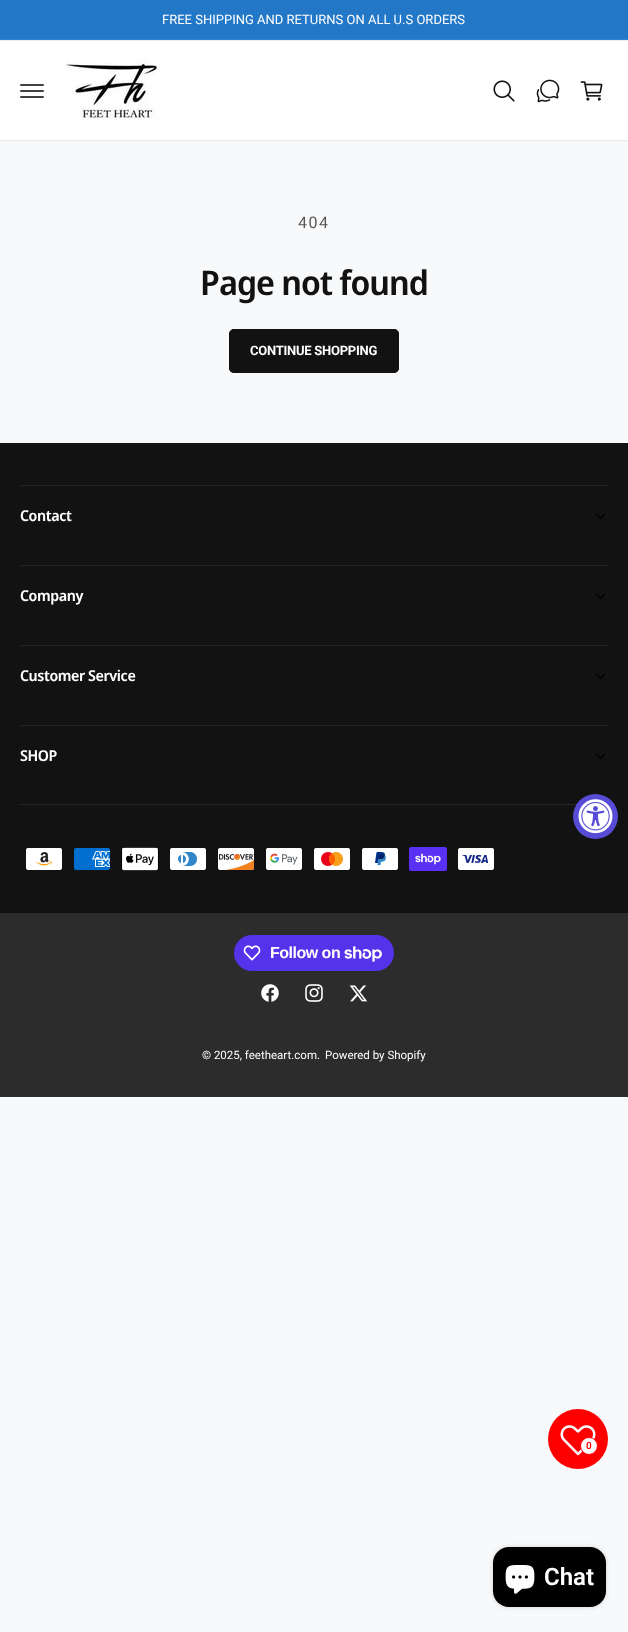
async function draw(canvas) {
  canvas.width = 628
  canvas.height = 1632
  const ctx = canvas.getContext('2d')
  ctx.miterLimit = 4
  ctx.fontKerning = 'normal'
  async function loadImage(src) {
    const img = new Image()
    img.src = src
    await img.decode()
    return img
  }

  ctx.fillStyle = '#f8f9fa'
  ctx.fillRect(0, 0, 628, 1632)
  ctx.fillStyle = '#2277c7'
  ctx.fillRect(0, 0, 628, 39)
  ctx.fillStyle = '#3482cb'
  ctx.fillRect(0, 39, 628, 1)
  ctx.font = '13px Roboto'
  ctx.fillStyle = '#fff'
  ctx.fillText('FREE SHIPPING AND RETURNS ON ALL U.S ORDERS', 162, 24)
  ctx.fillRect(0, 41, 628, 99)
  ctx.fillStyle = '#ececec'
  ctx.fillRect(0, 40, 628, 1)
  ctx.fillRect(0, 140, 628, 1)
  ctx.beginPath()
  ctx.moveTo(21, 85)
  ctx.lineTo(43, 85)
  ctx.moveTo(21, 91)
  ctx.lineTo(43, 91)
  ctx.moveTo(21, 97)
  ctx.lineTo(43, 97)
  ctx.strokeStyle = '#414141'
  ctx.lineWidth = 2
  ctx.lineCap = 'round'
  ctx.stroke()
  ctx.drawImage(await loadImage('image0.png'), 66, 59, 93, 61)
  ctx.drawImage(await loadImage('image1.png'), 493, 80, 22, 22)
  ctx.drawImage(await loadImage('image2.png'), 536, 79, 24, 24)
  ctx.drawImage(await loadImage('image3.png'), 580, 81, 23, 20)
  ctx.letterSpacing = '1.5px'
  ctx.font = '16px Roboto'
  ctx.fillStyle = '#575758'
  ctx.fillText('404', 298, 228)
  ctx.letterSpacing = '-1px'
  ctx.font = '600 34px Noto Sans Display'
  ctx.fillStyle = '#121212'
  ctx.fillText('Page not found', 200, 295)
  ctx.beginPath()
  ctx.roundRect(229, 329, 170, 44, 5)
  ctx.fill()
  ctx.beginPath()
  ctx.roundRect(229.5, 329.5, 169, 43, 4.5)
  ctx.strokeStyle = '#121212'
  ctx.lineWidth = 1
  ctx.stroke()
  ctx.letterSpacing = '-0.25px'
  ctx.font = 'bold 13px Roboto'
  ctx.fillStyle = '#fff'
  ctx.fillText('CONTINUE SHOPPING', 250, 355)
  ctx.fillStyle = '#121212'
  ctx.fillRect(0, 443, 628, 470)
  ctx.fillStyle = '#252525'
  ctx.fillRect(20, 485, 588, 1)
  ctx.fillRect(20, 565, 588, 1)
  ctx.letterSpacing = '-0.4px'
  ctx.font = '600 15px Noto Sans Display'
  ctx.fillStyle = '#fff'
  ctx.fillText('Contact', 20, 521)
  ctx.beginPath()
  ctx.moveTo(596.5, 514.5)
  ctx.lineTo(600.5, 518.5)
  ctx.lineTo(604.5, 514.5)
  ctx.strokeStyle = '#000'
  ctx.lineWidth = 1.4
  ctx.lineJoin = 'round'
  ctx.stroke()
  ctx.fillStyle = '#252525'
  ctx.fillRect(20, 645, 588, 1)
  ctx.fillStyle = '#fff'
  ctx.fillText('Company', 20, 601)
  ctx.beginPath()
  ctx.moveTo(596.5, 594.5)
  ctx.lineTo(600.5, 598.5)
  ctx.lineTo(604.5, 594.5)
  ctx.stroke()
  ctx.fillStyle = '#252525'
  ctx.fillRect(20, 725, 588, 1)
  ctx.fillStyle = '#fff'
  ctx.fillText('Customer Service', 20, 681)
  ctx.beginPath()
  ctx.moveTo(596.5, 674.5)
  ctx.lineTo(600.5, 678.5)
  ctx.lineTo(604.5, 674.5)
  ctx.stroke()
  ctx.fillStyle = '#252525'
  ctx.fillRect(20, 804, 557, 1)
  ctx.fillStyle = '#fff'
  ctx.fillText('SHOP', 20, 761)
  ctx.beginPath()
  ctx.moveTo(596.5, 754.5)
  ctx.lineTo(600.5, 758.5)
  ctx.lineTo(604.5, 754.5)
  ctx.stroke()
  ctx.drawImage(await loadImage('image4.png'), 26, 848, 36, 22)
  ctx.drawImage(await loadImage('image5.png'), 74, 848, 36, 22)
  ctx.drawImage(await loadImage('image6.png'), 121, 847, 38, 24)
  ctx.drawImage(await loadImage('image7.png'), 170, 848, 36, 22)
  ctx.drawImage(await loadImage('image8.png'), 218, 848, 36, 22)
  ctx.drawImage(await loadImage('image9.png'), 266, 848, 36, 22)
  ctx.drawImage(await loadImage('image10.png'), 314, 848, 36, 22)
  ctx.drawImage(await loadImage('image11.png'), 362, 848, 36, 22)
  ctx.drawImage(await loadImage('image12.png'), 409, 847, 38, 24)
  ctx.drawImage(await loadImage('image13.png'), 458, 848, 36, 22)
  ctx.fillStyle = '#2c2c2c'
  ctx.fillRect(0, 913, 628, 184)
  ctx.fillStyle = '#5433eb'
  ctx.beginPath()
  ctx.roundRect(234, 935, 160, 36, 18)
  ctx.fill()
  ctx.drawImage(await loadImage('image14.png'), 243, 945, 18, 16)
  ctx.letterSpacing = '-0.5px'
  ctx.font = 'bold 16px Liberation Sans'
  ctx.fillStyle = '#fff'
  ctx.fillText('Follow on', 270, 958)
  ctx.drawImage(await loadImage('image15.png'), 344, 946, 38, 16)
  ctx.drawImage(await loadImage('image16.png'), 261, 984, 18, 18)
  ctx.drawImage(await loadImage('image17.png'), 305, 984, 18, 18)
  ctx.drawImage(await loadImage('image18.png'), 349, 985, 19, 17)
  ctx.letterSpacing = '0px'
  ctx.font = '11.5px Roboto'
  ctx.fillText('© 2025, feetheart.com.', 202, 1059)
  ctx.fillText('Powered by Shopify', 325, 1059)
  ctx.fillStyle = '#574cd5'
  ctx.beginPath()
  ctx.arc(595.5, 816.5, 22.5, 0, 2 * Math.PI)
  ctx.fill()
  ctx.drawImage(await loadImage('image19.png'), 578, 799, 35, 35)
  ctx.fillStyle = '#f00'
  ctx.beginPath()
  ctx.arc(578, 1439, 30, 0, 2 * Math.PI)
  ctx.fill()
  ctx.drawImage(await loadImage('image20.png'), 560, 1425, 36, 31)
  ctx.fillStyle = '#fff'
  ctx.beginPath()
  ctx.arc(589, 1446, 8.5, 0, 2 * Math.PI)
  ctx.fill()
  ctx.strokeStyle = '#f00'
  ctx.lineWidth = 1
  ctx.stroke()
  ctx.font = '600 10px Roboto'
  ctx.fillStyle = '#f00'
  ctx.fillText('0', 586, 1449)
  ctx.fillStyle = '#00000026'
  ctx.filter = 'blur(2.5px)'
  ctx.beginPath()
  ctx.roundRect(493, 1547, 113, 60, 16)
  ctx.fill()
  ctx.filter = 'none'
  ctx.fillStyle = '#000'
  ctx.beginPath()
  ctx.roundRect(493, 1547, 113, 60, 16)
  ctx.fill()
  ctx.drawImage(await loadImage('image21.png'), 505, 1565, 30, 29)
  ctx.font = '600 24px Roboto'
  ctx.fillStyle = '#fff'
  ctx.fillText('Chat', 544, 1585)
}

draw(document.querySelector('canvas'))
